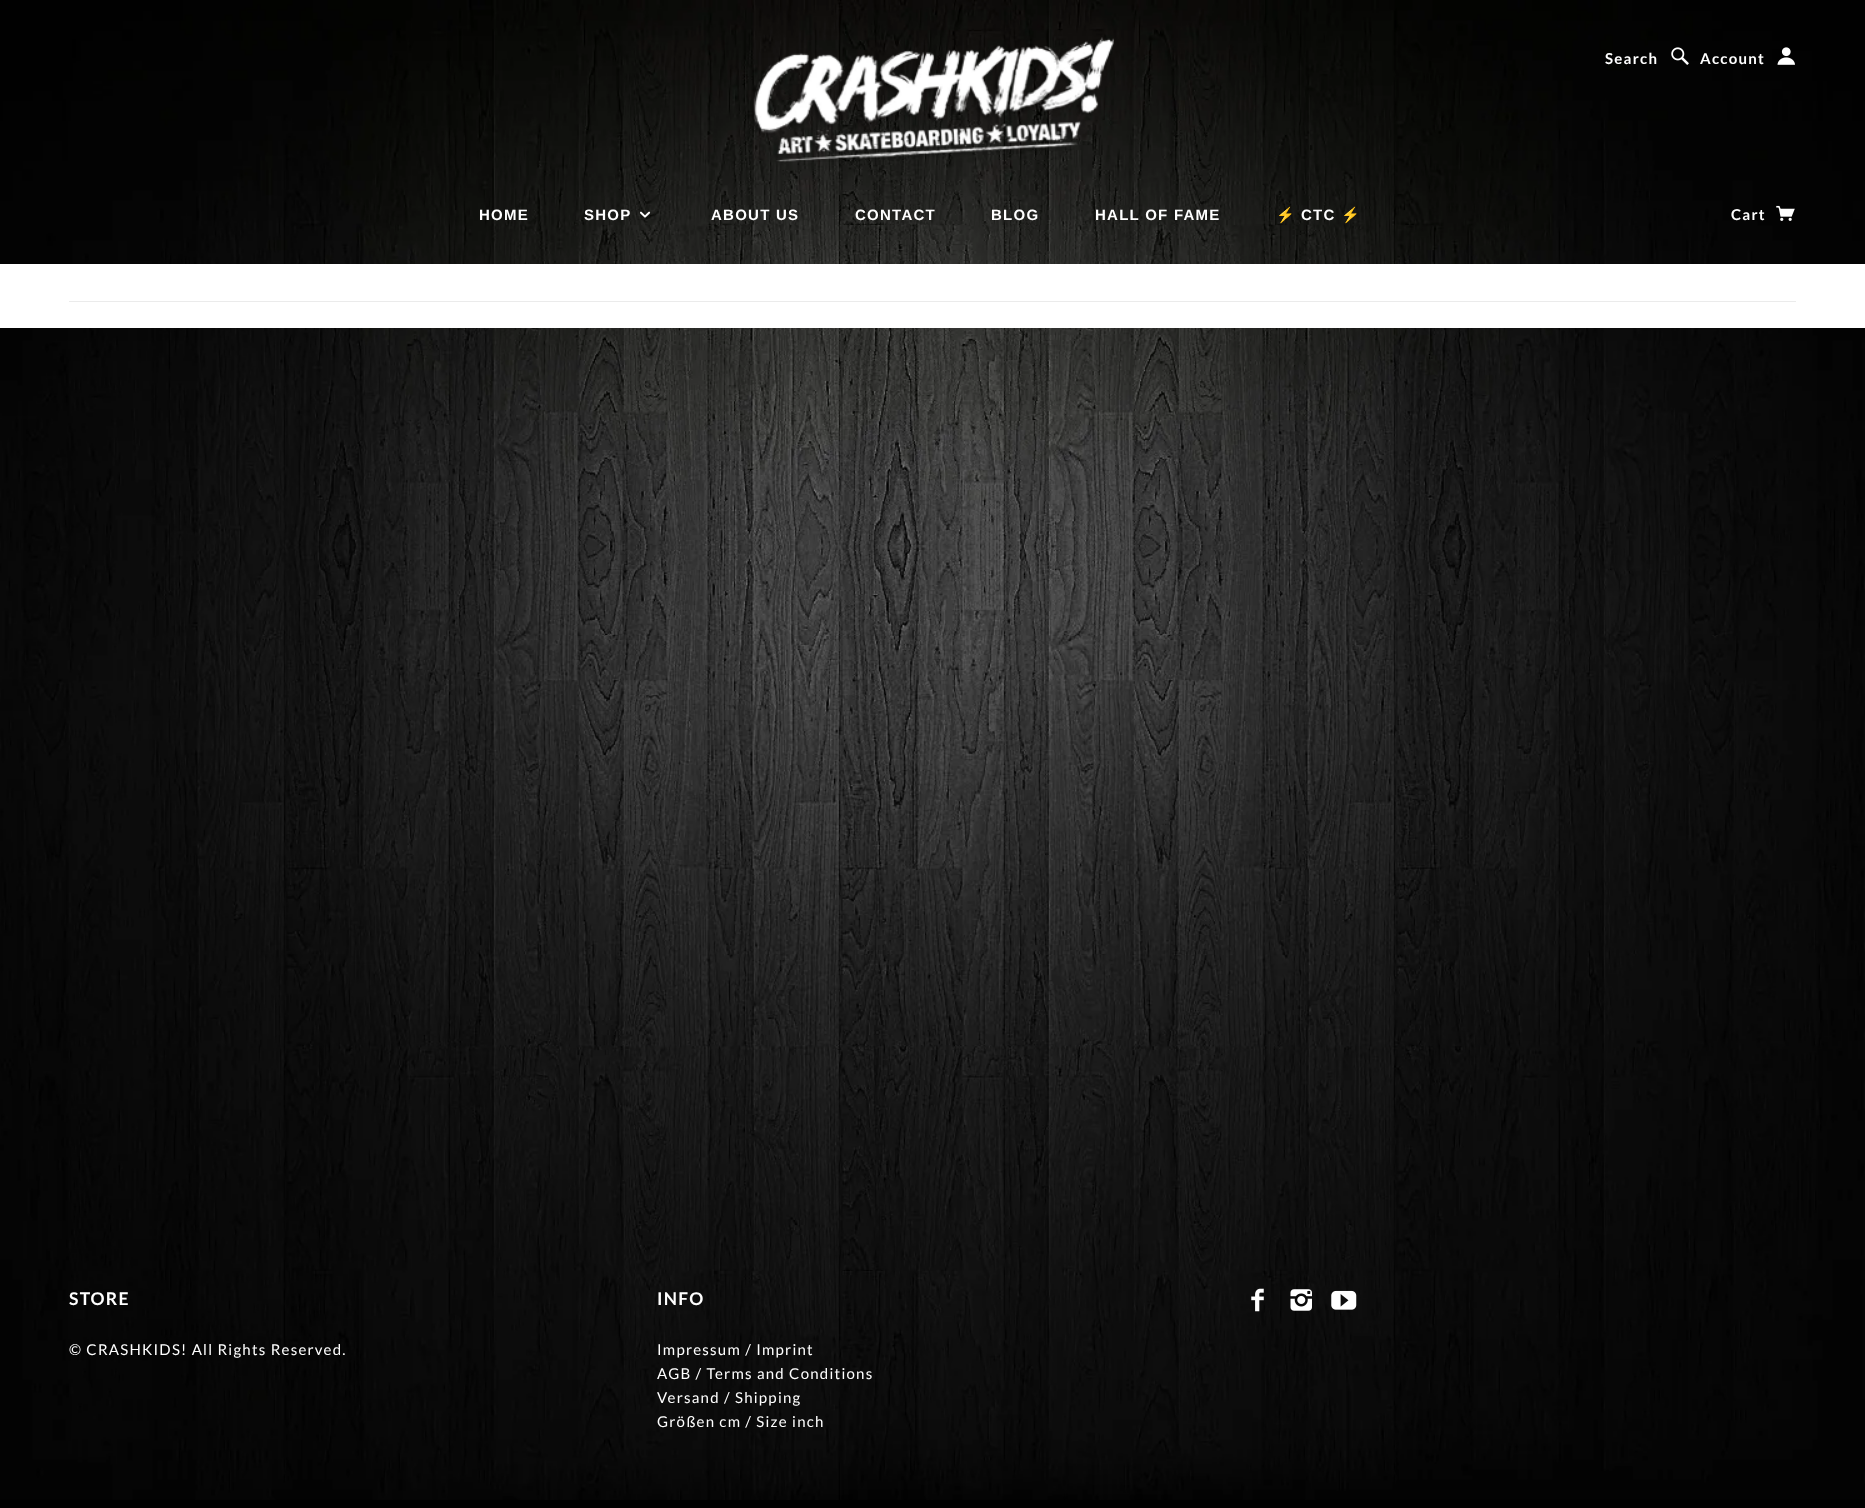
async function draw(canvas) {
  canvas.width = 1865
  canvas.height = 1508
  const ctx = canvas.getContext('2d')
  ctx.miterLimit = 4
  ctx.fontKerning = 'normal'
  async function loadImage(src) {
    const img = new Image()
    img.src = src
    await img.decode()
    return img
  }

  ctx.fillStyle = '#000'
  ctx.fillRect(0, 0, 1865, 1508)
  ctx.drawImage(await loadImage('image0.png'), 0, 0, 1865, 1500)
  ctx.drawImage(await loadImage('image1.png'), 753, 37, 361, 125)
  ctx.letterSpacing = '1.25px'
  ctx.font = 'bold 15px Lato'
  ctx.fillStyle = '#fff'
  ctx.fillText('Search', 1605, 64)
  ctx.drawImage(await loadImage('image2.png'), 1671, 47, 18, 18)
  ctx.fillText('Account', 1700, 64)
  ctx.drawImage(await loadImage('image3.png'), 1777, 47, 18, 18)
  ctx.font = 'bold 15px Liberation Sans'
  ctx.fillText('HOME', 479, 220)
  ctx.fillText('SHOP', 584, 220)
  ctx.drawImage(await loadImage('image4.png'), 640, 211, 11, 7)
  ctx.fillText('ABOUT US', 711, 220)
  ctx.fillText('CONTACT', 855, 220)
  ctx.fillText('BLOG', 991, 220)
  ctx.fillText('HALL OF FAME', 1095, 220)
  ctx.font = 'bold 15px Noto Color Emoji'
  ctx.fillText('⚡', 1276, 220)
  ctx.font = 'bold 15px Liberation Sans'
  ctx.fillText('CTC', 1301, 220)
  ctx.font = 'bold 15px Noto Color Emoji'
  ctx.fillText('⚡', 1341, 220)
  ctx.font = 'bold 15px Lato'
  ctx.fillText('Cart', 1731, 220)
  ctx.drawImage(await loadImage('image5.png'), 1776, 205, 19, 16)
  ctx.fillRect(0, 264, 1865, 64)
  ctx.fillStyle = '#ebebeb'
  ctx.fillRect(69, 301, 1727, 1)
  ctx.font = 'bold 17.5px Lato'
  ctx.fillStyle = '#fff'
  ctx.fillText('STORE', 69, 1305)
  ctx.font = '15px Lato'
  ctx.fillText('© CRASHKIDS! All Rights Reserved.', 69, 1355)
  ctx.font = 'bold 17.5px Lato'
  ctx.fillText('INFO', 657, 1305)
  ctx.font = '15px Lato'
  ctx.fillText('Impressum / Imprint', 657, 1355)
  ctx.fillText('AGB / Terms and Conditions', 657, 1379)
  ctx.fillText('Versand / Shipping', 657, 1403)
  ctx.fillText('Größen cm / Size inch', 657, 1427)
  ctx.drawImage(await loadImage('image6.png'), 1251, 1288, 13, 24)
  ctx.drawImage(await loadImage('image7.png'), 1290, 1289, 22, 22)
  ctx.drawImage(await loadImage('image8.png'), 1331, 1290, 26, 20)
}

draw(document.querySelector('canvas'))
